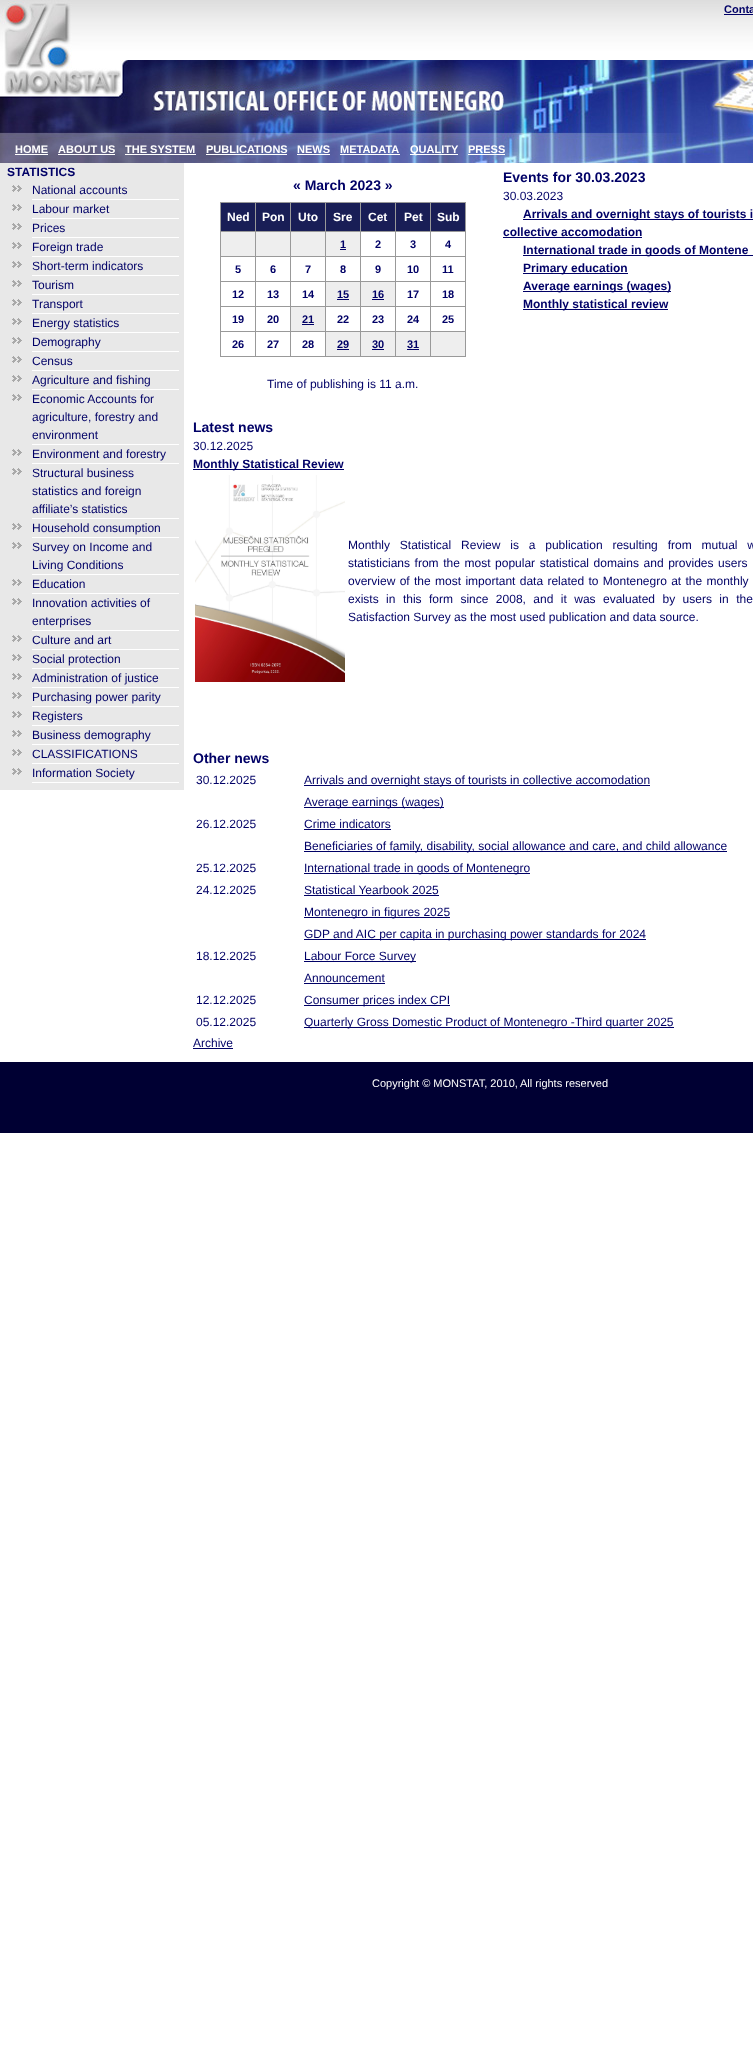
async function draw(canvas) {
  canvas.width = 753
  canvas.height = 2053
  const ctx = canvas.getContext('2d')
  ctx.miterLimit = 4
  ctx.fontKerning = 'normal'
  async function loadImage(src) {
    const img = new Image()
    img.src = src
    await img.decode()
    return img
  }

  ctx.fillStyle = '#fff'
  ctx.fillRect(0, 0, 753, 2053)
  ctx.drawImage(await loadImage('image0.png'), 0, 0, 753, 60)
  ctx.font = 'bold 11px Liberation Sans'
  ctx.fillStyle = '#006'
  ctx.fillText('Conta', 724, 13)
  ctx.fillRect(724, 14, 29, 1)
  ctx.drawImage(await loadImage('image1.png'), 0, 60, 753, 103)
  ctx.fillStyle = '#fff'
  ctx.fillText('HOME', 15, 153)
  ctx.fillRect(15, 154, 33, 1)
  ctx.fillText('ABOUT US', 58, 153)
  ctx.fillRect(58, 154, 57, 1)
  ctx.fillText('THE SYSTEM', 125, 153)
  ctx.fillRect(125, 154, 71, 1)
  ctx.fillText('PUBLICATIONS', 206, 153)
  ctx.fillRect(206, 154, 81, 1)
  ctx.fillText('NEWS', 297, 153)
  ctx.fillRect(297, 154, 33, 1)
  ctx.fillText('METADATA', 340, 153)
  ctx.fillRect(340, 154, 60, 1)
  ctx.fillRect(410, 154, 48, 1)
  ctx.fillText('QUALITY', 410, 153)
  ctx.fillText('PRESS', 468, 153)
  ctx.fillRect(468, 154, 37, 1)
  ctx.fillStyle = '#e8e8e8'
  ctx.fillRect(0, 163, 184, 627)
  ctx.font = 'bold 12px Liberation Sans'
  ctx.fillStyle = '#006'
  ctx.fillText('STATISTICS', 7, 176)
  ctx.fillStyle = '#fff'
  ctx.fillRect(32, 199, 147, 1)
  ctx.drawImage(await loadImage('image2.png'), 12, 185, 10, 7)
  ctx.font = '12px Liberation Sans'
  ctx.fillStyle = '#006'
  ctx.fillText('National accounts', 32, 194)
  ctx.fillStyle = '#fff'
  ctx.fillRect(32, 218, 147, 1)
  ctx.drawImage(await loadImage('image2.png'), 12, 204, 10, 7)
  ctx.fillStyle = '#006'
  ctx.fillText('Labour market', 32, 213)
  ctx.fillStyle = '#fff'
  ctx.fillRect(32, 237, 147, 1)
  ctx.drawImage(await loadImage('image2.png'), 12, 223, 10, 7)
  ctx.fillStyle = '#006'
  ctx.fillText('Prices', 32, 232)
  ctx.fillStyle = '#fff'
  ctx.fillRect(32, 256, 147, 1)
  ctx.drawImage(await loadImage('image2.png'), 12, 242, 10, 7)
  ctx.fillStyle = '#006'
  ctx.fillText('Foreign trade', 32, 251)
  ctx.fillStyle = '#fff'
  ctx.fillRect(32, 275, 147, 1)
  ctx.drawImage(await loadImage('image2.png'), 12, 261, 10, 7)
  ctx.fillStyle = '#006'
  ctx.fillText('Short-term indicators', 32, 270)
  ctx.fillStyle = '#fff'
  ctx.fillRect(32, 294, 147, 1)
  ctx.drawImage(await loadImage('image2.png'), 12, 280, 10, 7)
  ctx.fillStyle = '#006'
  ctx.fillText('Tourism', 32, 289)
  ctx.fillStyle = '#fff'
  ctx.fillRect(32, 313, 147, 1)
  ctx.drawImage(await loadImage('image2.png'), 12, 299, 10, 7)
  ctx.fillStyle = '#006'
  ctx.fillText('Transport', 32, 308)
  ctx.fillStyle = '#fff'
  ctx.fillRect(32, 332, 147, 1)
  ctx.drawImage(await loadImage('image2.png'), 12, 318, 10, 7)
  ctx.fillStyle = '#006'
  ctx.fillText('Energy statistics', 32, 327)
  ctx.fillStyle = '#fff'
  ctx.fillRect(32, 351, 147, 1)
  ctx.drawImage(await loadImage('image2.png'), 12, 337, 10, 7)
  ctx.fillStyle = '#006'
  ctx.fillText('Demography', 32, 346)
  ctx.fillStyle = '#fff'
  ctx.fillRect(32, 370, 147, 1)
  ctx.drawImage(await loadImage('image2.png'), 12, 356, 10, 7)
  ctx.fillStyle = '#006'
  ctx.fillText('Census', 32, 365)
  ctx.fillStyle = '#fff'
  ctx.fillRect(32, 389, 147, 1)
  ctx.drawImage(await loadImage('image2.png'), 12, 375, 10, 7)
  ctx.fillStyle = '#006'
  ctx.fillText('Agriculture and fishing', 32, 384)
  ctx.fillStyle = '#fff'
  ctx.fillRect(32, 444, 147, 1)
  ctx.drawImage(await loadImage('image2.png'), 12, 394, 10, 7)
  ctx.fillStyle = '#006'
  ctx.fillText('Economic Accounts for', 32, 403)
  ctx.fillText('agriculture, forestry and', 32, 421)
  ctx.fillText('environment', 32, 439)
  ctx.fillStyle = '#fff'
  ctx.fillRect(32, 463, 147, 1)
  ctx.drawImage(await loadImage('image2.png'), 12, 449, 10, 7)
  ctx.fillStyle = '#006'
  ctx.fillText('Environment and forestry', 32, 458)
  ctx.fillStyle = '#fff'
  ctx.fillRect(32, 518, 147, 1)
  ctx.drawImage(await loadImage('image2.png'), 12, 468, 10, 7)
  ctx.fillStyle = '#006'
  ctx.fillText('Structural business', 32, 477)
  ctx.fillText('statistics and foreign', 32, 495)
  ctx.fillText('affiliate’s statistics', 32, 513)
  ctx.fillStyle = '#fff'
  ctx.fillRect(32, 537, 147, 1)
  ctx.drawImage(await loadImage('image2.png'), 12, 523, 10, 7)
  ctx.fillStyle = '#006'
  ctx.fillText('Household consumption', 32, 532)
  ctx.fillStyle = '#fff'
  ctx.fillRect(32, 574, 147, 1)
  ctx.drawImage(await loadImage('image2.png'), 12, 542, 10, 7)
  ctx.fillStyle = '#006'
  ctx.fillText('Survey on Income and', 32, 551)
  ctx.fillText('Living Conditions', 32, 569)
  ctx.fillStyle = '#fff'
  ctx.fillRect(32, 593, 147, 1)
  ctx.drawImage(await loadImage('image2.png'), 12, 579, 10, 7)
  ctx.fillStyle = '#006'
  ctx.fillText('Education', 32, 588)
  ctx.fillStyle = '#fff'
  ctx.fillRect(32, 630, 147, 1)
  ctx.drawImage(await loadImage('image2.png'), 12, 598, 10, 7)
  ctx.fillStyle = '#006'
  ctx.fillText('Innovation activities of', 32, 607)
  ctx.fillText('enterprises', 32, 625)
  ctx.fillStyle = '#fff'
  ctx.fillRect(32, 649, 147, 1)
  ctx.drawImage(await loadImage('image2.png'), 12, 635, 10, 7)
  ctx.fillStyle = '#006'
  ctx.fillText('Culture and art', 32, 644)
  ctx.fillStyle = '#fff'
  ctx.fillRect(32, 668, 147, 1)
  ctx.drawImage(await loadImage('image2.png'), 12, 654, 10, 7)
  ctx.fillStyle = '#006'
  ctx.fillText('Social protection', 32, 663)
  ctx.fillStyle = '#fff'
  ctx.fillRect(32, 687, 147, 1)
  ctx.drawImage(await loadImage('image2.png'), 12, 673, 10, 7)
  ctx.fillStyle = '#006'
  ctx.fillText('Administration of justice', 32, 682)
  ctx.fillStyle = '#fff'
  ctx.fillRect(32, 706, 147, 1)
  ctx.drawImage(await loadImage('image2.png'), 12, 692, 10, 7)
  ctx.fillStyle = '#006'
  ctx.fillText('Purchasing power parity', 32, 701)
  ctx.fillStyle = '#fff'
  ctx.fillRect(32, 725, 147, 1)
  ctx.drawImage(await loadImage('image2.png'), 12, 711, 10, 7)
  ctx.fillStyle = '#006'
  ctx.fillText('Registers', 32, 720)
  ctx.fillStyle = '#fff'
  ctx.fillRect(32, 744, 147, 1)
  ctx.drawImage(await loadImage('image2.png'), 12, 730, 10, 7)
  ctx.fillStyle = '#006'
  ctx.fillText('Business demography', 32, 739)
  ctx.fillStyle = '#fff'
  ctx.fillRect(32, 763, 147, 1)
  ctx.drawImage(await loadImage('image2.png'), 12, 749, 10, 7)
  ctx.fillStyle = '#006'
  ctx.fillText('CLASSIFICATIONS', 32, 758)
  ctx.fillStyle = '#fff'
  ctx.fillRect(32, 782, 147, 1)
  ctx.drawImage(await loadImage('image2.png'), 12, 768, 10, 7)
  ctx.fillStyle = '#006'
  ctx.fillText('Information Society', 32, 777)
  ctx.font = 'bold 14px Liberation Sans'
  ctx.fillText('« March 2023 »', 293, 190)
  ctx.fillStyle = '#999'
  ctx.fillRect(220, 202, 1, 155)
  ctx.fillStyle = '#191e56'
  ctx.fillRect(221, 203, 34, 28)
  ctx.fillStyle = '#999'
  ctx.fillRect(221, 202, 245, 1)
  ctx.fillRect(255, 202, 1, 155)
  ctx.fillRect(221, 231, 35, 1)
  ctx.font = 'bold 12px Liberation Sans'
  ctx.fillStyle = '#fff'
  ctx.fillText('Ned', 227, 221)
  ctx.fillStyle = '#191e56'
  ctx.fillRect(256, 203, 34, 28)
  ctx.fillStyle = '#999'
  ctx.fillRect(290, 202, 1, 155)
  ctx.fillRect(256, 231, 35, 1)
  ctx.fillStyle = '#fff'
  ctx.fillText('Pon', 262, 221)
  ctx.fillStyle = '#191e56'
  ctx.fillRect(291, 203, 34, 28)
  ctx.fillStyle = '#999'
  ctx.fillRect(325, 202, 1, 155)
  ctx.fillRect(291, 231, 35, 1)
  ctx.fillStyle = '#fff'
  ctx.fillText('Uto', 298, 221)
  ctx.fillStyle = '#191e56'
  ctx.fillRect(326, 203, 34, 28)
  ctx.fillStyle = '#999'
  ctx.fillRect(360, 202, 1, 155)
  ctx.fillRect(326, 231, 35, 1)
  ctx.fillStyle = '#fff'
  ctx.fillText('Sre', 333, 221)
  ctx.fillStyle = '#191e56'
  ctx.fillRect(361, 203, 34, 28)
  ctx.fillStyle = '#999'
  ctx.fillRect(395, 202, 1, 155)
  ctx.fillRect(361, 231, 35, 1)
  ctx.fillStyle = '#fff'
  ctx.fillText('Cet', 368, 221)
  ctx.fillStyle = '#191e56'
  ctx.fillRect(396, 203, 34, 28)
  ctx.fillStyle = '#999'
  ctx.fillRect(430, 202, 1, 155)
  ctx.fillRect(396, 231, 35, 1)
  ctx.fillStyle = '#fff'
  ctx.fillText('Pet', 404, 221)
  ctx.fillStyle = '#191e56'
  ctx.fillRect(431, 203, 34, 28)
  ctx.fillStyle = '#999'
  ctx.fillRect(465, 202, 1, 105)
  ctx.fillRect(431, 231, 35, 1)
  ctx.fillStyle = '#fff'
  ctx.fillText('Sub', 437, 221)
  ctx.fillStyle = '#eee'
  ctx.fillRect(221, 232, 34, 24)
  ctx.fillStyle = '#999'
  ctx.fillRect(221, 256, 245, 1)
  ctx.fillStyle = '#eee'
  ctx.fillRect(256, 232, 34, 24)
  ctx.fillRect(291, 232, 34, 24)
  ctx.fillRect(326, 232, 34, 24)
  ctx.font = 'bold 11px Liberation Sans'
  ctx.fillStyle = '#006'
  ctx.fillText('1', 340, 248)
  ctx.fillRect(340, 249, 6, 1)
  ctx.fillText('2', 375, 248)
  ctx.fillText('3', 410, 248)
  ctx.fillText('4', 445, 248)
  ctx.fillStyle = '#999'
  ctx.fillRect(221, 281, 245, 1)
  ctx.fillStyle = '#006'
  ctx.fillText('5', 235, 273)
  ctx.fillText('6', 270, 273)
  ctx.fillText('7', 305, 273)
  ctx.fillText('8', 340, 273)
  ctx.fillText('9', 375, 273)
  ctx.fillText('10', 407, 273)
  ctx.fillText('11', 442, 273)
  ctx.fillStyle = '#999'
  ctx.fillRect(221, 306, 245, 1)
  ctx.fillStyle = '#006'
  ctx.fillText('12', 232, 298)
  ctx.fillText('13', 267, 298)
  ctx.fillText('14', 302, 298)
  ctx.fillStyle = '#eee'
  ctx.fillRect(326, 282, 34, 24)
  ctx.fillStyle = '#006'
  ctx.fillText('15', 337, 298)
  ctx.fillRect(337, 299, 12, 1)
  ctx.fillStyle = '#eee'
  ctx.fillRect(361, 282, 34, 24)
  ctx.fillStyle = '#006'
  ctx.fillText('16', 372, 298)
  ctx.fillRect(372, 299, 12, 1)
  ctx.fillText('17', 407, 298)
  ctx.fillText('18', 442, 298)
  ctx.fillStyle = '#999'
  ctx.fillRect(465, 307, 1, 50)
  ctx.fillRect(221, 331, 245, 1)
  ctx.fillStyle = '#006'
  ctx.fillText('19', 232, 323)
  ctx.fillText('20', 267, 323)
  ctx.fillStyle = '#eee'
  ctx.fillRect(291, 307, 34, 24)
  ctx.fillStyle = '#006'
  ctx.fillText('21', 302, 323)
  ctx.fillRect(302, 324, 12, 1)
  ctx.fillText('22', 337, 323)
  ctx.fillText('23', 372, 323)
  ctx.fillText('24', 407, 323)
  ctx.fillText('25', 442, 323)
  ctx.fillStyle = '#999'
  ctx.fillRect(221, 356, 210, 1)
  ctx.fillStyle = '#006'
  ctx.fillText('26', 232, 348)
  ctx.fillText('27', 267, 348)
  ctx.fillText('28', 302, 348)
  ctx.fillStyle = '#eee'
  ctx.fillRect(326, 332, 34, 24)
  ctx.fillStyle = '#006'
  ctx.fillText('29', 337, 348)
  ctx.fillRect(337, 349, 12, 1)
  ctx.fillStyle = '#eee'
  ctx.fillRect(361, 332, 34, 24)
  ctx.fillStyle = '#006'
  ctx.fillText('30', 372, 348)
  ctx.fillRect(372, 349, 12, 1)
  ctx.fillStyle = '#eee'
  ctx.fillRect(396, 332, 34, 24)
  ctx.fillStyle = '#006'
  ctx.fillText('31', 407, 348)
  ctx.fillRect(407, 349, 12, 1)
  ctx.fillStyle = '#eee'
  ctx.fillRect(431, 332, 34, 24)
  ctx.fillStyle = '#999'
  ctx.fillRect(431, 356, 35, 1)
  ctx.font = '12px Liberation Sans'
  ctx.fillStyle = '#006'
  ctx.fillText('Time of publishing is 11 a.m.', 267, 388)
  ctx.font = 'bold 14px Liberation Sans'
  ctx.fillText('Events for 30.03.2023', 503, 182)
  ctx.font = '12px Liberation Sans'
  ctx.fillText('30.03.2023', 503, 200)
  ctx.fillRect(523, 219, 230, 1)
  ctx.font = 'bold 12px Liberation Sans'
  ctx.fillText('Arrivals and overnight stays of tourists i', 523, 218)
  ctx.fillText('collective accomodation', 503, 236)
  ctx.fillRect(503, 237, 139, 1)
  ctx.fillRect(523, 255, 230, 1)
  ctx.fillText('International trade in goods of Montene', 523, 254)
  ctx.fillRect(523, 273, 105, 1)
  ctx.fillText('Primary education', 523, 272)
  ctx.fillRect(523, 291, 148, 1)
  ctx.fillText('Average earnings (wages)', 523, 290)
  ctx.fillRect(523, 309, 145, 1)
  ctx.fillText('Monthly statistical review', 523, 308)
  ctx.font = 'bold 14px Liberation Sans'
  ctx.fillText('Latest news', 193, 432)
  ctx.font = '12px Liberation Sans'
  ctx.fillText('30.12.2025', 193, 450)
  ctx.fillRect(193, 469, 151, 1)
  ctx.font = 'bold 12px Liberation Sans'
  ctx.fillText('Monthly Statistical Review', 193, 468)
  ctx.drawImage(await loadImage('image3.png'), 195, 475, 150, 207)
  ctx.wordSpacing = '6.5px'
  ctx.font = '12px Liberation Sans'
  ctx.fillText('Monthly Statistical Review is a publication resulting from mutual w', 348, 549)
  ctx.wordSpacing = '1.25px'
  ctx.fillText('statisticians from the most popular statistical domains and provides users', 348, 567)
  ctx.wordSpacing = '1px'
  ctx.fillText('overview of the most important data related to Montenegro at the monthly', 348, 585)
  ctx.wordSpacing = '4.1px'
  ctx.fillText('exists in this form since 2008, and it was evaluated by users in the', 348, 603)
  ctx.wordSpacing = '0px'
  ctx.fillText('Satisfaction Survey as the most used publication and data source.', 348, 621)
  ctx.font = 'bold 14px Liberation Sans'
  ctx.fillText('Other news', 193, 763)
  ctx.font = '12px Liberation Sans'
  ctx.fillText('30.12.2025', 196, 784)
  ctx.fillRect(304, 785, 346, 1)
  ctx.fillText('Arrivals and overnight stays of tourists in collective accomodation', 304, 784)
  ctx.fillRect(304, 807, 140, 1)
  ctx.fillText('Average earnings (wages)', 304, 806)
  ctx.fillText('26.12.2025', 196, 828)
  ctx.fillText('Crime indicators', 304, 828)
  ctx.fillRect(304, 829, 87, 1)
  ctx.fillRect(304, 851, 423, 1)
  ctx.fillText('Beneficiaries of family, disability, social allowance and care, and child allowance', 304, 850)
  ctx.fillText('25.12.2025', 196, 872)
  ctx.fillRect(304, 873, 226, 1)
  ctx.fillText('International trade in goods of Montenegro', 304, 872)
  ctx.fillText('24.12.2025', 196, 894)
  ctx.fillText('Statistical Yearbook 2025', 304, 894)
  ctx.fillRect(304, 895, 135, 1)
  ctx.fillRect(304, 917, 146, 1)
  ctx.fillText('Montenegro in figures 2025', 304, 916)
  ctx.fillRect(304, 939, 342, 1)
  ctx.fillText('GDP and AIC per capita in purchasing power standards for 2024', 304, 938)
  ctx.fillText('18.12.2025', 196, 960)
  ctx.fillRect(304, 961, 112, 1)
  ctx.fillText('Labour Force Survey', 304, 960)
  ctx.fillText('Announcement', 304, 982)
  ctx.fillRect(304, 983, 81, 1)
  ctx.fillText('12.12.2025', 196, 1004)
  ctx.fillRect(304, 1005, 146, 1)
  ctx.fillText('Consumer prices index CPI', 304, 1004)
  ctx.fillText('05.12.2025', 196, 1026)
  ctx.fillRect(304, 1027, 370, 1)
  ctx.fillText('Quarterly Gross Domestic Product of Montenegro -Third quarter 2025', 304, 1026)
  ctx.fillText('Archive', 193, 1047)
  ctx.fillRect(193, 1048, 40, 1)
  ctx.fillStyle = '#003'
  ctx.fillRect(0, 1062, 753, 71)
  ctx.font = '11px Liberation Sans'
  ctx.fillStyle = '#fff'
  ctx.fillText('Copyright © MONSTAT, 2010,', 372, 1087)
  ctx.fillText('All rights reserved', 520, 1087)
}

draw(document.querySelector('canvas'))
